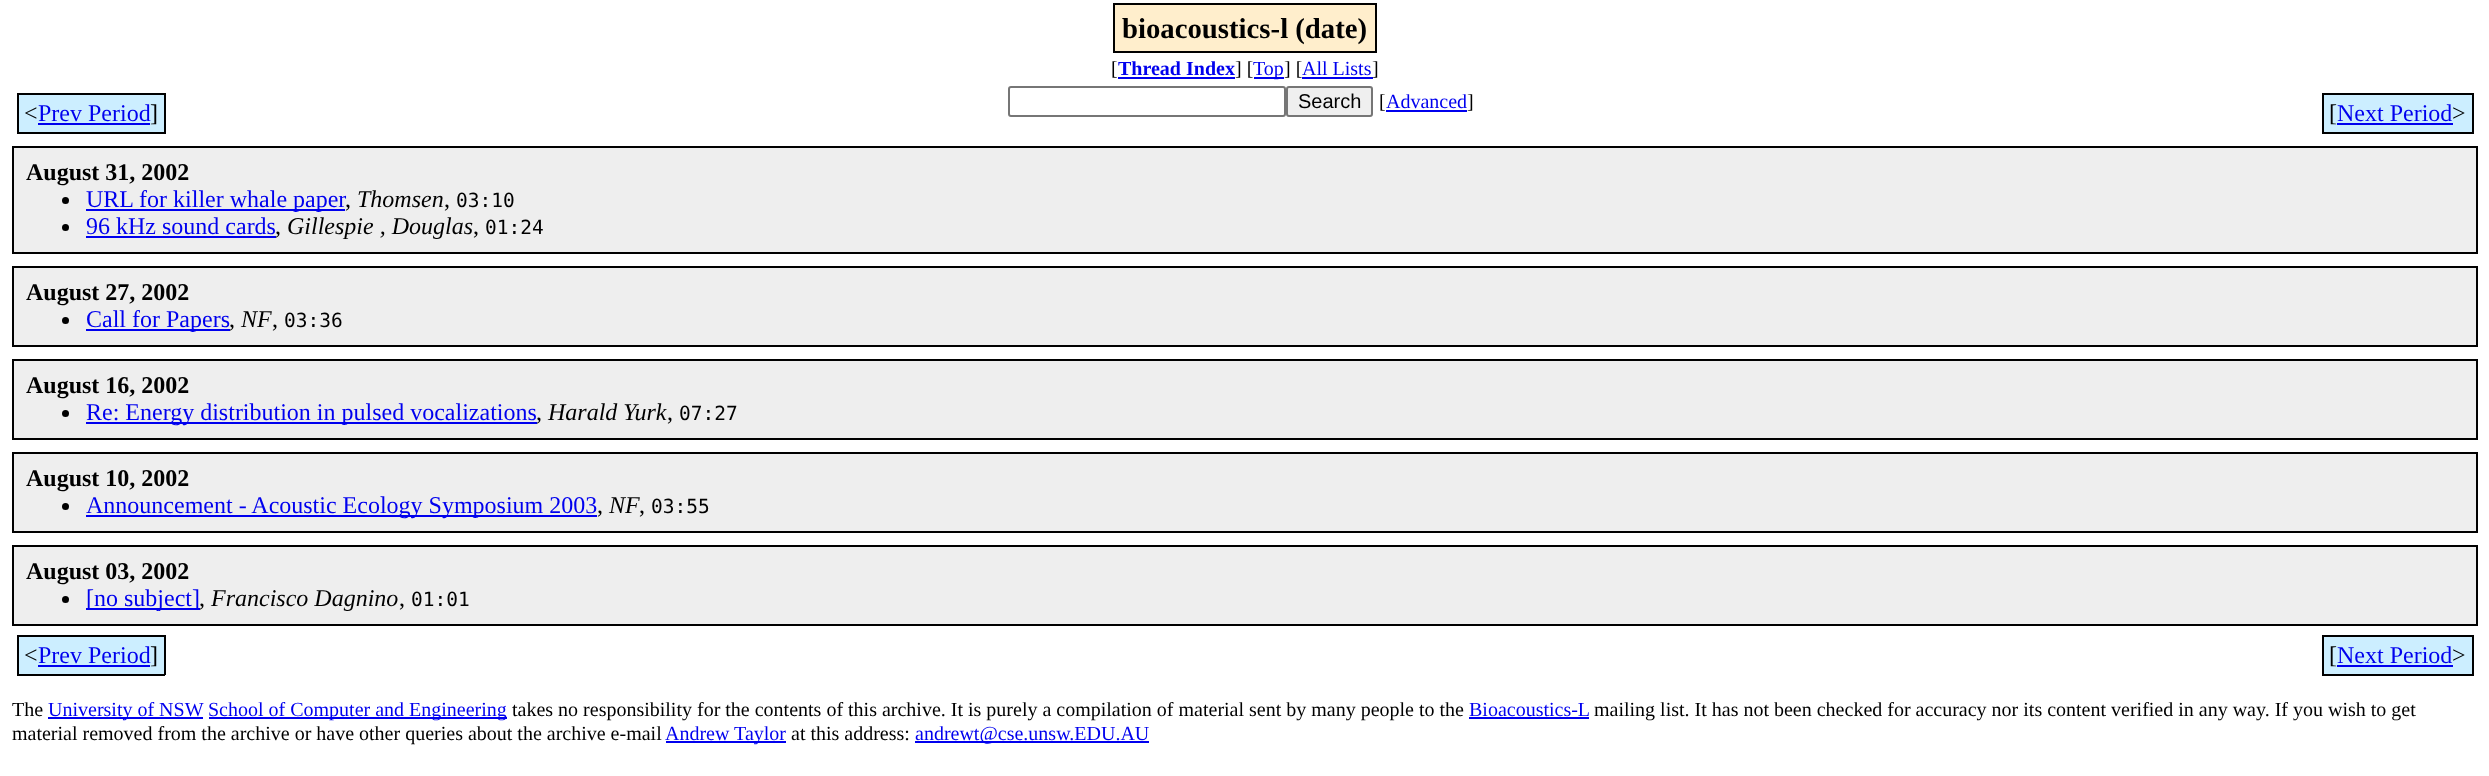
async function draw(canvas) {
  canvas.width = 2489
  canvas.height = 776
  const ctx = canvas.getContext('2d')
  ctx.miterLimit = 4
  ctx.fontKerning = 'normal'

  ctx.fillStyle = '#fff'
  ctx.fillRect(0, 0, 2489, 776)
  ctx.fillStyle = '#fec'
  ctx.beginPath()
  ctx.rect(1114, 4, 262, 48)
  ctx.fill()
  ctx.strokeStyle = '#000'
  ctx.lineWidth = 2
  ctx.stroke()
  ctx.font = 'bold 28.75px Liberation Serif'
  ctx.fillStyle = '#000'
  ctx.fillText('bioacoustics-l (date)', 1122, 38)
  ctx.font = '20px Liberation Serif'
  ctx.fillText('[', 1111, 75)
  ctx.fillStyle = '#00e'
  ctx.fillRect(1118, 77, 117, 2)
  ctx.font = 'bold 20px Liberation Serif'
  ctx.fillText('Thread Index', 1118, 75)
  ctx.font = '20px Liberation Serif'
  ctx.fillStyle = '#000'
  ctx.fillText('] [', 1235, 75)
  ctx.fillStyle = '#00e'
  ctx.fillRect(1254, 77, 30, 2)
  ctx.fillText('Top', 1253, 75)
  ctx.fillStyle = '#000'
  ctx.fillText('] [', 1284, 75)
  ctx.fillStyle = '#00e'
  ctx.fillText('All Lists', 1302, 75)
  ctx.fillRect(1302, 77, 71, 2)
  ctx.fillStyle = '#000'
  ctx.fillText(']', 1372, 75)
  ctx.beginPath()
  ctx.roundRect(1009, 87, 276, 29, 2)
  ctx.strokeStyle = '#767676'
  ctx.stroke()
  ctx.fillStyle = '#efefef'
  ctx.beginPath()
  ctx.roundRect(1287, 87, 85, 29, 2)
  ctx.fill()
  ctx.stroke()
  ctx.font = '20px Liberation Sans'
  ctx.fillStyle = '#000'
  ctx.fillText('Search', 1298, 108)
  ctx.font = '20px Liberation Serif'
  ctx.fillText('[', 1379, 108)
  ctx.fillStyle = '#00e'
  ctx.fillText('Advanced', 1386, 108)
  ctx.fillStyle = '#000'
  ctx.fillText(']', 1467, 108)
  ctx.fillStyle = '#00e'
  ctx.fillRect(1386, 110, 81, 2)
  ctx.fillStyle = '#cef'
  ctx.fillRect(19, 95, 145, 37)
  ctx.font = '24px Liberation Serif'
  ctx.fillStyle = '#000'
  ctx.fillText('<', 24, 121)
  ctx.fillRect(17, 93, 148, 2)
  ctx.fillRect(17, 132, 133, 2)
  ctx.fillRect(17, 93, 2, 41)
  ctx.fillStyle = '#00e'
  ctx.fillText('Prev Period', 38, 121)
  ctx.fillStyle = '#000'
  ctx.fillText(']', 150, 121)
  ctx.fillRect(164, 93, 2, 41)
  ctx.fillRect(150, 132, 15, 2)
  ctx.fillStyle = '#00e'
  ctx.fillRect(38, 123, 112, 2)
  ctx.fillStyle = '#cef'
  ctx.fillRect(2324, 95, 148, 37)
  ctx.fillStyle = '#000'
  ctx.fillText('[', 2329, 121)
  ctx.fillRect(2322, 132, 131, 2)
  ctx.fillRect(2322, 93, 152, 2)
  ctx.fillRect(2322, 93, 2, 41)
  ctx.fillStyle = '#00e'
  ctx.fillRect(2337, 123, 116, 2)
  ctx.fillText('Next Period', 2337, 121)
  ctx.fillStyle = '#000'
  ctx.fillRect(2472, 93, 2, 41)
  ctx.fillRect(2453, 132, 21, 2)
  ctx.fillText('>', 2452, 121)
  ctx.fillStyle = '#eee'
  ctx.beginPath()
  ctx.rect(13, 147, 2464, 106)
  ctx.fill()
  ctx.strokeStyle = '#000'
  ctx.stroke()
  ctx.font = 'bold 24px Liberation Serif'
  ctx.fillStyle = '#000'
  ctx.fillText('August 31, 2002', 26, 180)
  ctx.beginPath()
  ctx.arc(65.5, 200.5, 3.5, 0, 2 * Math.PI)
  ctx.fill()
  ctx.fillStyle = '#00e'
  ctx.fillRect(86, 209, 259, 2)
  ctx.font = '24px Liberation Serif'
  ctx.fillText('URL for killer whale paper', 86, 207)
  ctx.font = 'italic 24px Liberation Serif'
  ctx.fillStyle = '#000'
  ctx.fillText('Thomsen', 357, 207)
  ctx.font = '19.5px DejaVu Sans Mono'
  ctx.fillText('03:10', 456, 207)
  ctx.font = '24px Liberation Serif'
  ctx.fillText(',', 345, 207)
  ctx.fillText(',', 444, 207)
  ctx.beginPath()
  ctx.arc(65.5, 227.5, 3.5, 0, 2 * Math.PI)
  ctx.fill()
  ctx.fillStyle = '#00e'
  ctx.fillText('96 kHz sound cards', 86, 234)
  ctx.fillRect(86, 236, 190, 2)
  ctx.font = 'italic 24px Liberation Serif'
  ctx.fillStyle = '#000'
  ctx.fillText('Gillespie , Douglas', 287, 234)
  ctx.font = '19.5px DejaVu Sans Mono'
  ctx.fillText('01:24', 485, 234)
  ctx.font = '24px Liberation Serif'
  ctx.fillText(',', 275, 234)
  ctx.fillText(',', 473, 234)
  ctx.fillStyle = '#eee'
  ctx.beginPath()
  ctx.rect(13, 267, 2464, 79)
  ctx.fill()
  ctx.stroke()
  ctx.font = 'bold 24px Liberation Serif'
  ctx.fillStyle = '#000'
  ctx.fillText('August 27, 2002', 26, 300)
  ctx.beginPath()
  ctx.arc(65.5, 320.5, 3.5, 0, 2 * Math.PI)
  ctx.fill()
  ctx.fillStyle = '#00e'
  ctx.fillRect(86, 329, 144, 2)
  ctx.font = '24px Liberation Serif'
  ctx.fillText('Call for Papers', 86, 327)
  ctx.font = 'italic 24px Liberation Serif'
  ctx.fillStyle = '#000'
  ctx.fillText('NF', 241, 327)
  ctx.font = '19.5px DejaVu Sans Mono'
  ctx.fillText('03:36', 284, 327)
  ctx.font = '24px Liberation Serif'
  ctx.fillText(',', 229, 327)
  ctx.fillText(',', 272, 327)
  ctx.fillStyle = '#eee'
  ctx.beginPath()
  ctx.rect(13, 360, 2464, 79)
  ctx.fill()
  ctx.stroke()
  ctx.font = 'bold 24px Liberation Serif'
  ctx.fillStyle = '#000'
  ctx.fillText('August 16, 2002', 26, 393)
  ctx.beginPath()
  ctx.arc(65.5, 413.5, 3.5, 0, 2 * Math.PI)
  ctx.fill()
  ctx.fillStyle = '#00e'
  ctx.fillRect(86, 422, 451, 2)
  ctx.font = '24px Liberation Serif'
  ctx.fillText('Re: Energy distribution in pulsed vocalizations', 86, 420)
  ctx.font = 'italic 24px Liberation Serif'
  ctx.fillStyle = '#000'
  ctx.fillText('Harald Yurk', 548, 420)
  ctx.font = '19.5px DejaVu Sans Mono'
  ctx.fillText('07:27', 679, 420)
  ctx.font = '24px Liberation Serif'
  ctx.fillText(',', 536, 420)
  ctx.fillText(',', 667, 420)
  ctx.fillStyle = '#eee'
  ctx.beginPath()
  ctx.rect(13, 453, 2464, 79)
  ctx.fill()
  ctx.stroke()
  ctx.font = 'bold 24px Liberation Serif'
  ctx.fillStyle = '#000'
  ctx.fillText('August 10, 2002', 26, 486)
  ctx.beginPath()
  ctx.arc(65.5, 506.5, 3.5, 0, 2 * Math.PI)
  ctx.fill()
  ctx.fillStyle = '#00e'
  ctx.fillRect(86, 515, 511, 2)
  ctx.font = '24px Liberation Serif'
  ctx.fillText('Announcement - Acoustic Ecology Symposium 2003', 86, 513)
  ctx.font = 'italic 24px Liberation Serif'
  ctx.fillStyle = '#000'
  ctx.fillText('NF', 609, 513)
  ctx.font = '19.5px DejaVu Sans Mono'
  ctx.fillText('03:55', 651, 513)
  ctx.font = '24px Liberation Serif'
  ctx.fillText(',', 597, 513)
  ctx.fillText(',', 639, 513)
  ctx.fillStyle = '#eee'
  ctx.beginPath()
  ctx.rect(13, 546, 2464, 79)
  ctx.fill()
  ctx.stroke()
  ctx.font = 'bold 24px Liberation Serif'
  ctx.fillStyle = '#000'
  ctx.fillText('August 03, 2002', 26, 579)
  ctx.beginPath()
  ctx.arc(65.5, 599.5, 3.5, 0, 2 * Math.PI)
  ctx.fill()
  ctx.fillStyle = '#00e'
  ctx.fillRect(86, 608, 114, 2)
  ctx.font = '24px Liberation Serif'
  ctx.fillText('[no subject]', 86, 606)
  ctx.font = 'italic 24px Liberation Serif'
  ctx.fillStyle = '#000'
  ctx.fillText('Francisco Dagnino', 211, 606)
  ctx.font = '19.5px DejaVu Sans Mono'
  ctx.fillText('01:01', 411, 606)
  ctx.font = '24px Liberation Serif'
  ctx.fillText(',', 199, 606)
  ctx.fillText(',', 399, 606)
  ctx.fillStyle = '#cef'
  ctx.fillRect(19, 637, 145, 37)
  ctx.fillStyle = '#000'
  ctx.fillText('<', 24, 663)
  ctx.fillRect(17, 635, 148, 2)
  ctx.fillRect(17, 674, 133, 2)
  ctx.fillRect(17, 635, 2, 40)
  ctx.fillStyle = '#00e'
  ctx.fillText('Prev Period', 38, 663)
  ctx.fillStyle = '#000'
  ctx.fillText(']', 150, 663)
  ctx.fillRect(164, 635, 2, 40)
  ctx.fillRect(150, 674, 15, 2)
  ctx.fillStyle = '#00e'
  ctx.fillRect(38, 665, 112, 2)
  ctx.fillStyle = '#cef'
  ctx.fillRect(2324, 637, 148, 37)
  ctx.fillStyle = '#000'
  ctx.fillText('[', 2329, 663)
  ctx.fillRect(2322, 674, 131, 2)
  ctx.fillRect(2322, 635, 152, 2)
  ctx.fillRect(2322, 635, 2, 40)
  ctx.fillStyle = '#00e'
  ctx.fillRect(2337, 665, 116, 2)
  ctx.fillText('Next Period', 2337, 663)
  ctx.fillStyle = '#000'
  ctx.fillRect(2472, 635, 2, 40)
  ctx.fillRect(2453, 674, 21, 2)
  ctx.fillText('>', 2452, 663)
  ctx.font = '20px Liberation Serif'
  ctx.fillText('The', 12, 716)
  ctx.fillStyle = '#00e'
  ctx.fillRect(48, 717, 155, 2)
  ctx.fillText('University of NSW', 48, 716)
  ctx.fillRect(209, 717, 298, 2)
  ctx.fillText('School of Computer and Engineering', 208, 716)
  ctx.fillStyle = '#000'
  ctx.fillText('takes no responsibility for the contents of this archive. It is purely a compilation of material sent by many people to the', 512, 716)
  ctx.fillStyle = '#00e'
  ctx.fillText('Bioacoustics-L', 1469, 716)
  ctx.fillRect(1469, 717, 120, 2)
  ctx.fillStyle = '#000'
  ctx.fillText('mailing list. It has not been checked for accuracy nor its content verified in any way. If you wish to get', 1594, 716)
  ctx.fillText('material removed from the archive or have other queries about the archive e-mail', 12, 740)
  ctx.fillStyle = '#00e'
  ctx.fillRect(666, 741, 120, 2)
  ctx.fillText('Andrew Taylor', 665, 740)
  ctx.fillStyle = '#000'
  ctx.fillText('at this address:', 791, 740)
  ctx.fillStyle = '#00e'
  ctx.fillRect(915, 741, 234, 2)
  ctx.fillText('andrewt@cse.unsw.EDU.AU', 915, 740)
}

draw(document.querySelector('canvas'))
